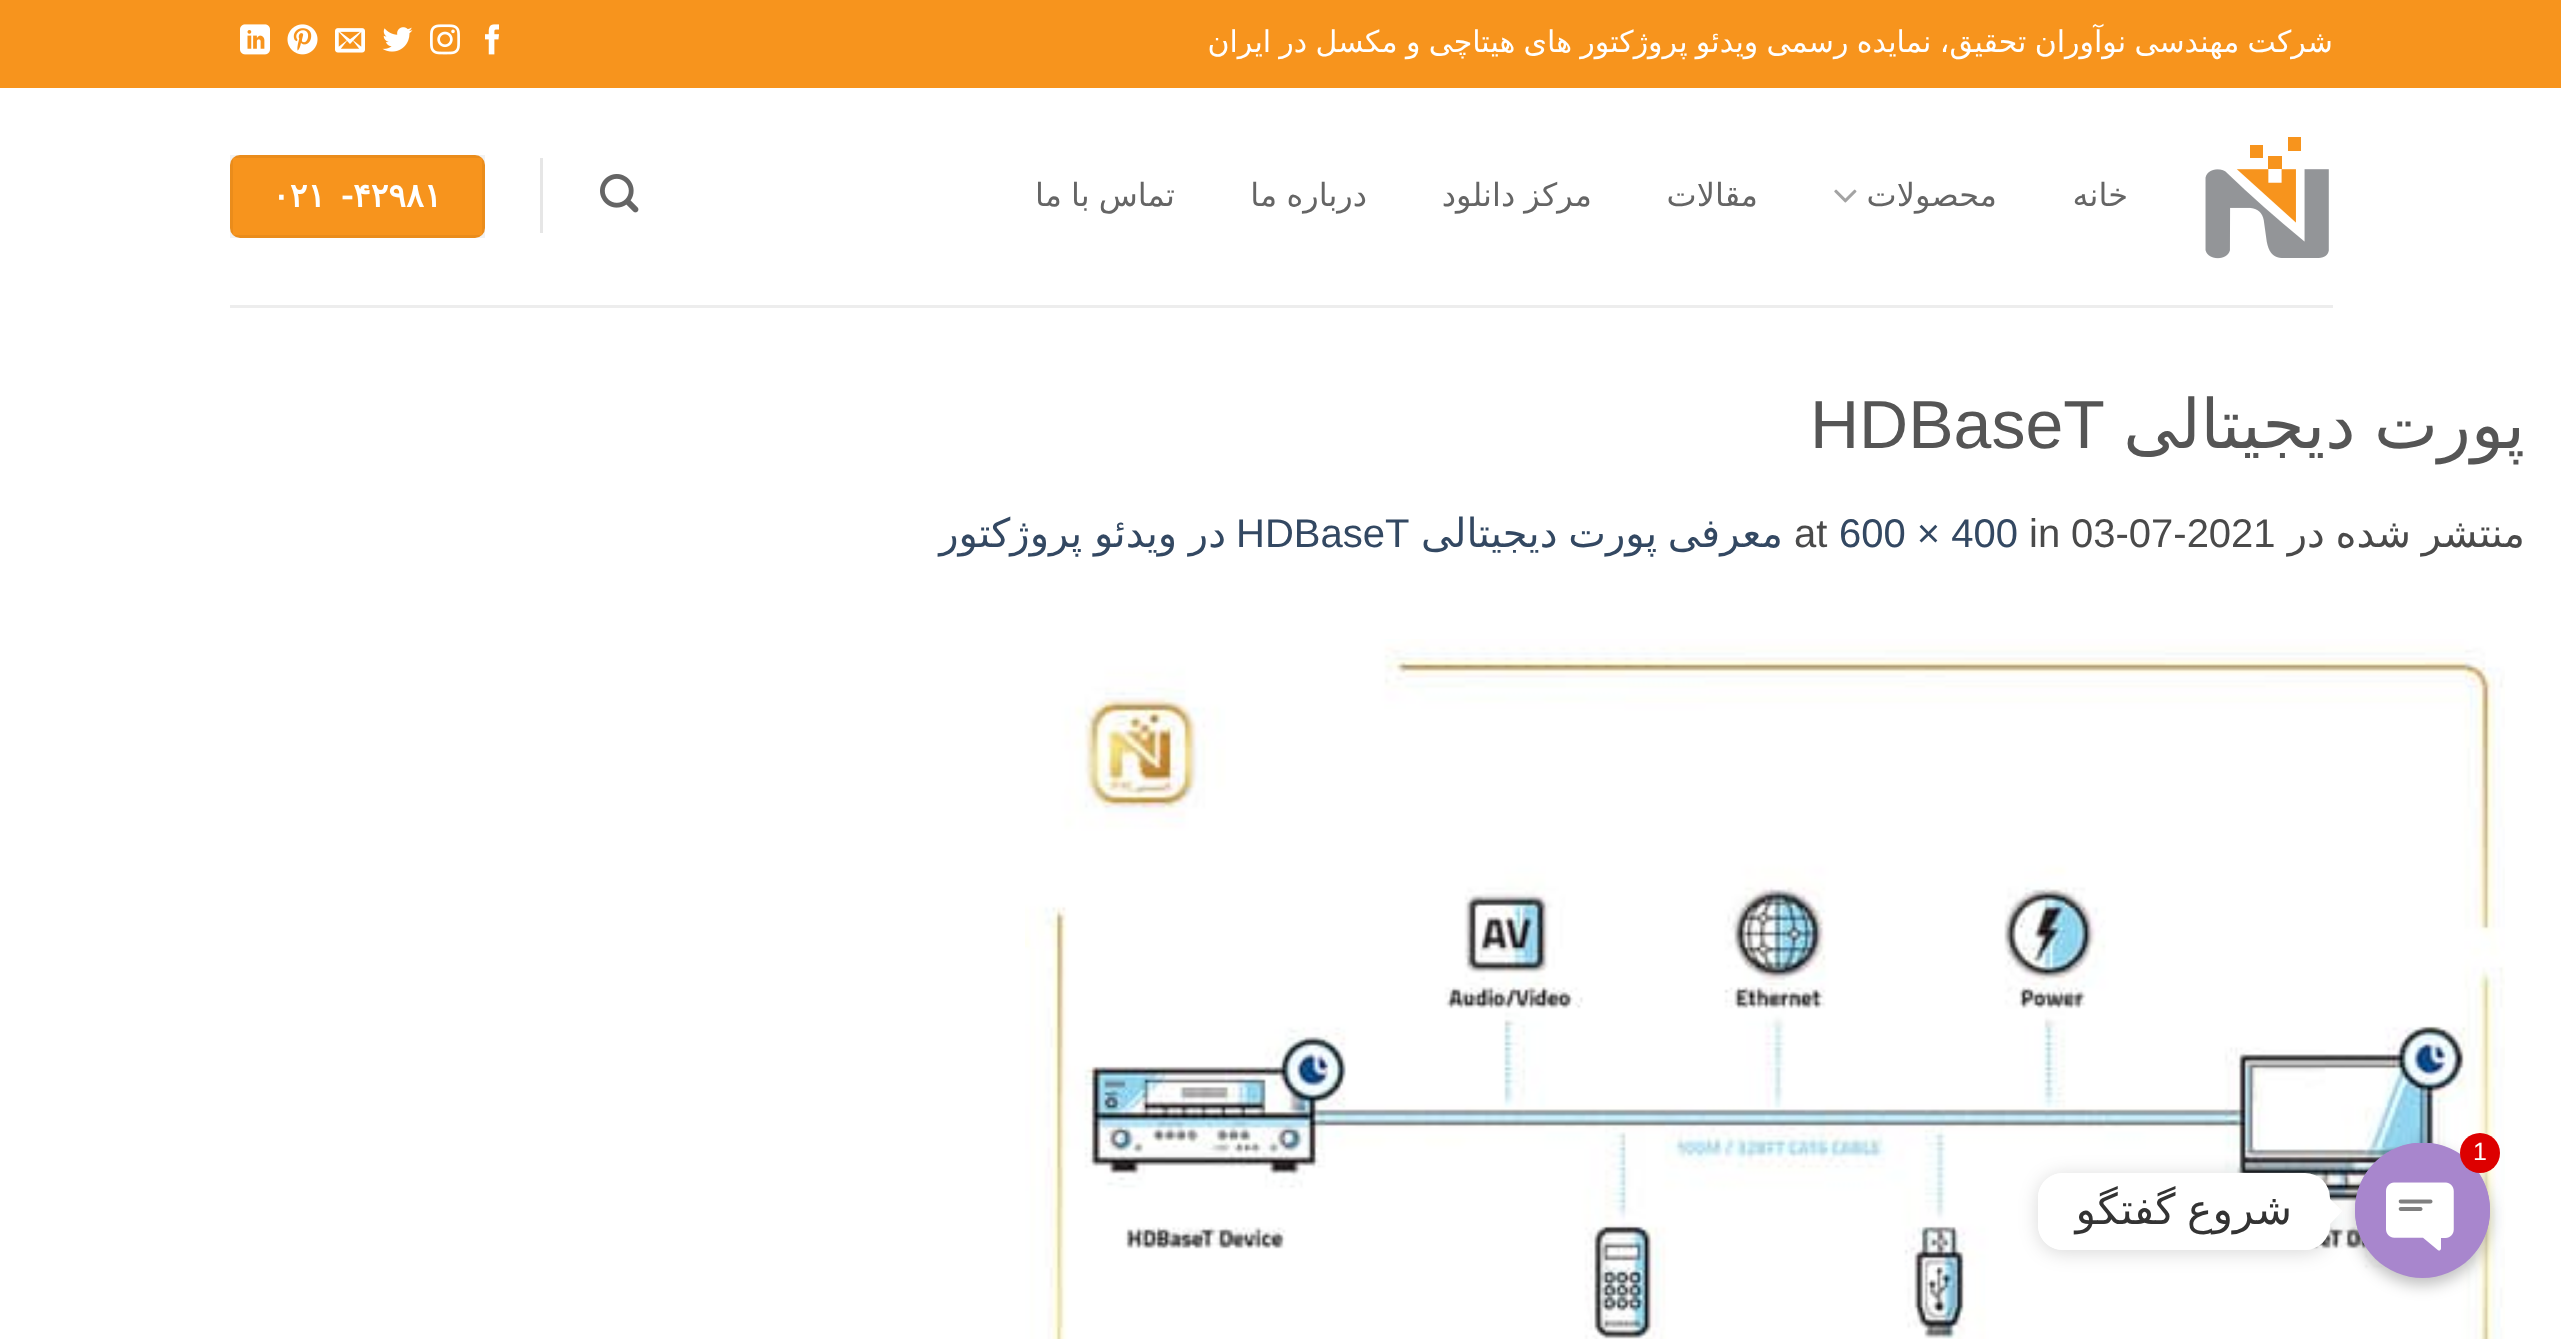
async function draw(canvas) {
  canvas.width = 2561
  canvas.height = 1339
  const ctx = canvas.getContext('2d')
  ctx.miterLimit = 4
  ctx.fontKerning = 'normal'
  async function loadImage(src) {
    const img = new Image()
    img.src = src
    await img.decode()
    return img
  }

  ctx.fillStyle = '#fff'
  ctx.fillRect(0, 0, 2561, 1339)
  ctx.fillStyle = '#f7941d'
  ctx.fillRect(0, 0, 2561, 88)
  ctx.wordSpacing = '-1.25px'
  ctx.direction = 'rtl'
  ctx.font = '30px DejaVu Sans'
  ctx.fillStyle = '#fff'
  ctx.fillText('شرکت مهندسی نوآوران تحقیق، نمایده رسمی ویدئو پروژکتور های هیتاچی و مکسل در ایران', 2333, 52)
  ctx.drawImage(await loadImage('image0.png'), 485, 24, 14, 31)
  ctx.drawImage(await loadImage('image1.png'), 430, 24, 30, 31)
  ctx.drawImage(await loadImage('image2.png'), 382, 27, 31, 25)
  ctx.drawImage(await loadImage('image3.png'), 335, 28, 30, 25)
  ctx.drawImage(await loadImage('image4.png'), 287, 24, 31, 31)
  ctx.drawImage(await loadImage('image5.png'), 240, 24, 30, 31)
  ctx.drawImage(await loadImage('image6.png'), 2205, 137, 124, 122)
  ctx.wordSpacing = '0px'
  ctx.font = '32px DejaVu Sans'
  ctx.fillStyle = '#656565'
  ctx.fillText('خانه', 2128, 206)
  ctx.fillText('محصولات', 1997, 206)
  ctx.drawImage(await loadImage('image7.png'), 1834, 189, 23, 14)
  ctx.fillText('مقالات', 1758, 206)
  ctx.wordSpacing = '-1px'
  ctx.fillText('مرکز دانلود', 1592, 206)
  ctx.fillText('درباره ما', 1367, 206)
  ctx.fillText('تماس با ما', 1175, 206)
  ctx.drawImage(await loadImage('image8.png'), 600, 174, 39, 39)
  ctx.fillStyle = '#e6e6e6'
  ctx.fillRect(540, 158, 3, 75)
  ctx.fillStyle = '#f7941d'
  ctx.beginPath()
  ctx.roundRect(230, 155, 255, 83, 10)
  ctx.fill()
  ctx.strokeStyle = '#0000000d'
  ctx.lineWidth = 3
  ctx.strokeRect(231.5, 156.5, 252, 80)
  ctx.letterSpacing = '1px'
  ctx.wordSpacing = '0px'
  ctx.direction = 'ltr'
  ctx.font = 'bold 33px DejaVu Sans'
  ctx.fillStyle = '#fff'
  ctx.fillText('-۴۲۹۸۱', 341, 207)
  ctx.fillText('۰۲۱', 272, 207)
  ctx.fillStyle = '#ededed'
  ctx.fillRect(230, 305, 2103, 3)
  ctx.letterSpacing = '0px'
  ctx.wordSpacing = '-3px'
  ctx.direction = 'rtl'
  ctx.font = '68px DejaVu Sans'
  ctx.fillStyle = '#555'
  ctx.fillText('پورت دیجیتالی', 2525, 448)
  ctx.wordSpacing = '0px'
  ctx.direction = 'ltr'
  ctx.font = '68px Liberation Sans'
  ctx.fillText('HDBaseT', 1810, 448)
  ctx.wordSpacing = '-2px'
  ctx.direction = 'rtl'
  ctx.font = '40px DejaVu Sans'
  ctx.fillStyle = '#4a4a4a'
  ctx.fillText('منتشر شده در', 2525, 547)
  ctx.wordSpacing = '0px'
  ctx.direction = 'ltr'
  ctx.font = '40px Liberation Sans'
  ctx.fillText('03-07-2021', 2071, 547)
  ctx.fillText('in', 2029, 547)
  ctx.fillStyle = '#334862'
  ctx.fillText('600 × 400', 1839, 547)
  ctx.fillStyle = '#4a4a4a'
  ctx.fillText('at', 1794, 547)
  ctx.wordSpacing = '-2px'
  ctx.direction = 'rtl'
  ctx.font = '40px DejaVu Sans'
  ctx.fillStyle = '#334862'
  ctx.fillText('معرفی پورت دیجیتالی', 1783, 547)
  ctx.wordSpacing = '0px'
  ctx.direction = 'ltr'
  ctx.font = '40px Liberation Sans'
  ctx.fillText('HDBaseT', 1236, 547)
  ctx.wordSpacing = '-1px'
  ctx.direction = 'rtl'
  ctx.font = '40px DejaVu Sans'
  ctx.fillText('در ویدئو پروژکتور', 1226, 547)
  ctx.drawImage(await loadImage('image9.png'), 1025, 639, 1480, 700)
  ctx.save()
  ctx.beginPath()
  ctx.moveTo(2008, 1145)
  ctx.lineTo(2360, 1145)
  ctx.lineTo(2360, 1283)
  ctx.lineTo(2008, 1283)
  ctx.closePath()
  ctx.moveTo(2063, 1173)
  ctx.lineTo(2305, 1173)
  ctx.bezierCurveTo(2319, 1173, 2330, 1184, 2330, 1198)
  ctx.lineTo(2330, 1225)
  ctx.bezierCurveTo(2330, 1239, 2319, 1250, 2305, 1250)
  ctx.lineTo(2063, 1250)
  ctx.bezierCurveTo(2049, 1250, 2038, 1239, 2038, 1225)
  ctx.lineTo(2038, 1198)
  ctx.bezierCurveTo(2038, 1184, 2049, 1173, 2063, 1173)
  ctx.closePath()
  ctx.clip('evenodd')
  ctx.fillStyle = '#00000026'
  ctx.filter = 'blur(9.5px)'
  ctx.beginPath()
  ctx.roundRect(2038, 1175, 292, 78, 25)
  ctx.fill()
  ctx.filter = 'none'
  ctx.restore()
  ctx.fillStyle = '#fff'
  ctx.beginPath()
  ctx.moveTo(2330, 1224)
  ctx.lineTo(2330, 1199)
  ctx.lineTo(2342.5, 1211)
  ctx.closePath()
  ctx.fill()
  ctx.fillStyle = '#00000040'
  ctx.filter = 'blur(7.5px)'
  ctx.beginPath()
  ctx.roundRect(2355, 1150, 135, 135, 67.5)
  ctx.fill()
  ctx.filter = 'none'
  ctx.fillStyle = '#a886cd'
  ctx.beginPath()
  ctx.arc(2422.5, 1210.5, 67.5, 0, 2 * Math.PI)
  ctx.fill()
  ctx.drawImage(await loadImage('image10.png'), 2355, 1143, 135, 108)
  ctx.fillStyle = '#d00'
  ctx.beginPath()
  ctx.arc(2480, 1153, 20, 0, 2 * Math.PI)
  ctx.fill()
  ctx.wordSpacing = '0px'
  ctx.direction = 'ltr'
  ctx.font = '25px Liberation Sans'
  ctx.fillStyle = '#fff'
  ctx.fillText('1', 2473, 1160)
  ctx.beginPath()
  ctx.roundRect(2038, 1173, 292, 77, 25)
  ctx.fill()
  ctx.wordSpacing = '-2px'
  ctx.direction = 'rtl'
  ctx.font = '42.5px DejaVu Sans'
  ctx.fillStyle = '#333'
  ctx.fillText('شروع گفتگو', 2292, 1224)
}

draw(document.querySelector('canvas'))
